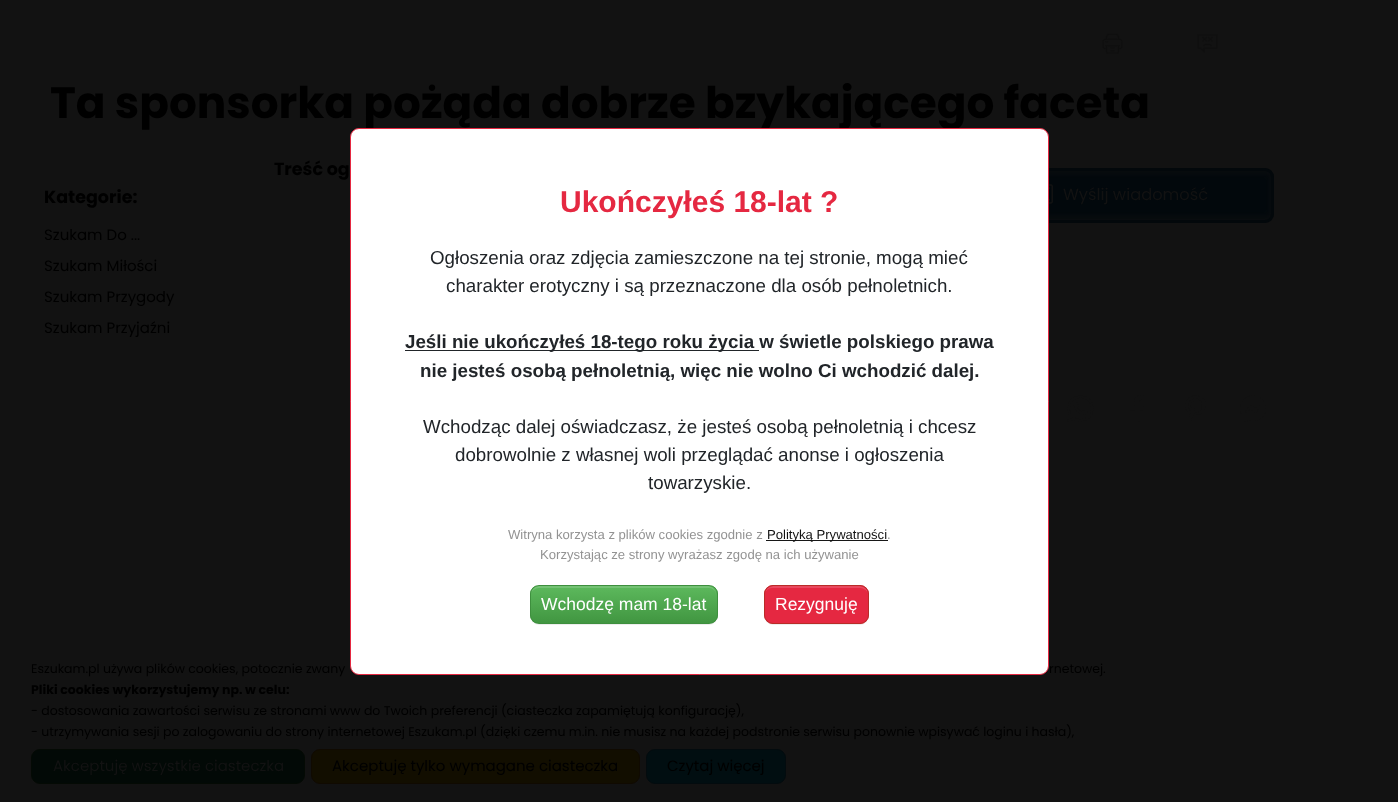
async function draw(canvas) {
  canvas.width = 1398
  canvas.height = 802
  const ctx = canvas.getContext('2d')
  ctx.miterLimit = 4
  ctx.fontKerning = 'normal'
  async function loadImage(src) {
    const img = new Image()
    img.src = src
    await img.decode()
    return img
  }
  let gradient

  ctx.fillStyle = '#121212'
  ctx.fillRect(0, 0, 1398, 802)
  ctx.drawImage(await loadImage('image0.png'), 1102, 33, 21, 21)
  ctx.drawImage(await loadImage('image1.png'), 1197, 34, 21, 19)
  ctx.font = 'bold 43.75px Poppins'
  ctx.fillStyle = '#000'
  ctx.fillText('Ta sponsorka pożąda dobrze bzykającego faceta', 50, 118)
  ctx.font = 'bold 17.5px Poppins'
  ctx.fillText('Treść og', 274, 175)
  ctx.fillText('Kategorie:', 44, 203)
  ctx.font = '15px Poppins'
  ctx.fillText('Szukam Do ...', 44, 240)
  ctx.fillText('Szukam Miłości', 44, 271)
  ctx.fillText('Szukam Przygody', 44, 302)
  ctx.fillText('Szukam Przyjaźni', 44, 333)
  ctx.save()
  ctx.beginPath()
  ctx.roundRect(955, 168, 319, 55, 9)
  ctx.clip()
  ctx.fillStyle = '#02080c'
  ctx.filter = 'blur(5px)'
  ctx.beginPath()
  ctx.rect(955, 170, 319, 50)
  ctx.fill()
  ctx.filter = 'none'
  ctx.restore()
  ctx.beginPath()
  ctx.roundRect(956.5, 169.5, 316, 52, 7.5)
  ctx.strokeStyle = '#03080b'
  ctx.lineWidth = 3
  ctx.stroke()
  ctx.drawImage(await loadImage('image2.png'), 1049, 184, 4, 20)
  ctx.font = '16.25px Poppins'
  ctx.fillStyle = '#121212'
  ctx.fillText('Wyślij wiadomość', 1063, 200)
  ctx.drawImage(await loadImage('image3.png'), 1067, 395, 27, 27)
  ctx.drawImage(await loadImage('image4.png'), 1130, 395, 14, 27)
  ctx.drawImage(await loadImage('image5.png'), 1185, 395, 21, 27)
  ctx.drawImage(await loadImage('image6.png'), 1240, 395, 26, 27)
  ctx.fillStyle = '#fff'
  ctx.beginPath()
  ctx.roundRect(350.5, 128.5, 698, 546, 8.5)
  ctx.fill()
  ctx.strokeStyle = '#e52841'
  ctx.lineWidth = 1
  ctx.stroke()
  ctx.font = 'bold 30px Liberation Sans'
  ctx.fillStyle = '#e52841'
  ctx.fillText('Ukończyłeś 18-lat ?', 560, 212)
  ctx.font = '18.75px Liberation Sans'
  ctx.fillStyle = '#212529'
  ctx.fillText('Ogłoszenia oraz zdjęcia zamieszczone na tej stronie, mogą mieć', 430, 264)
  ctx.fillText('charakter erotyczny i są przeznaczone dla osób pełnoletnich.', 446, 292)
  ctx.fillRect(405, 350, 354, 1)
  ctx.font = 'bold 18.75px Liberation Sans'
  ctx.fillText('Jeśli nie ukończyłeś 18-tego roku życia w świetle polskiego prawa', 405, 348)
  ctx.fillText('nie jesteś osobą pełnoletnią, więc nie wolno Ci wchodzić dalej.', 420, 377)
  ctx.font = '18.75px Liberation Sans'
  ctx.fillText('Wchodząc dalej oświadczasz, że jesteś osobą pełnoletnią i chcesz', 423, 433)
  ctx.fillText('dobrowolnie z własnej woli przeglądać anonse i ogłoszenia', 455, 461)
  ctx.fillText('towarzyskie.', 648, 489)
  ctx.font = '13.1px Liberation Sans'
  ctx.fillStyle = '#939393'
  ctx.fillText('Witryna korzysta z plików cookies zgodnie z', 508, 539)
  ctx.fillStyle = '#171717'
  ctx.fillRect(766, 540, 122, 1)
  ctx.fillStyle = '#121212'
  ctx.fillText('Polityką Prywatności', 767, 539)
  ctx.fillStyle = '#939393'
  ctx.fillText('.', 887, 539)
  ctx.fillText('Korzystając ze strony wyrażasz zgodę na ich używanie', 540, 559)
  ctx.fillStyle = '#00000012'
  ctx.filter = 'blur(0.5px)'
  ctx.beginPath()
  ctx.roundRect(530, 586, 188, 39, 9)
  ctx.fill()
  ctx.filter = 'none'
  ctx.save()
  ctx.beginPath()
  ctx.roundRect(530, 585, 188, 39, 9)
  ctx.clip()
  gradient = ctx.createLinearGradient(624, 587, 624, 623)
  gradient.addColorStop(0, '#5cb85c')
  gradient.addColorStop(1, '#419641')
  ctx.fillStyle = gradient
  ctx.fillRect(530, 586, 188, 37)
  ctx.restore()
  ctx.fillStyle = '#ffffff26'
  ctx.beginPath()
  ctx.moveTo(539, 588)
  ctx.lineTo(709, 588)
  ctx.bezierCurveTo(713, 588, 716, 591, 716, 595)
  ctx.lineTo(716, 594)
  ctx.bezierCurveTo(716, 590, 712, 586, 708, 586)
  ctx.lineTo(539, 586)
  ctx.bezierCurveTo(535, 586, 531, 590, 531, 594)
  ctx.lineTo(531, 595)
  ctx.bezierCurveTo(531, 591, 535, 588, 539, 588)
  ctx.closePath()
  ctx.fill()
  ctx.beginPath()
  ctx.roundRect(530.5, 585.5, 187, 38, 8.5)
  ctx.strokeStyle = '#3e8f3e'
  ctx.stroke()
  ctx.font = '17.5px Liberation Sans'
  ctx.fillStyle = '#fff'
  ctx.fillText('Wchodzę mam 18-lat', 541, 610)
  ctx.fillStyle = '#00000012'
  ctx.filter = 'blur(0.5px)'
  ctx.beginPath()
  ctx.roundRect(764, 586, 105, 39, 9)
  ctx.fill()
  ctx.filter = 'none'
  ctx.fillStyle = '#e52841'
  ctx.beginPath()
  ctx.roundRect(764, 585, 105, 39, 9)
  ctx.fill()
  ctx.fillStyle = '#e9485e'
  ctx.beginPath()
  ctx.moveTo(772, 588)
  ctx.lineTo(860, 588)
  ctx.bezierCurveTo(864, 588, 868, 591, 868, 595)
  ctx.bezierCurveTo(868, 583, 854, 586, 846, 586)
  ctx.lineTo(788, 586)
  ctx.bezierCurveTo(779, 586, 765, 583, 765, 595)
  ctx.bezierCurveTo(765, 591, 768, 588, 772, 588)
  ctx.closePath()
  ctx.fill()
  ctx.beginPath()
  ctx.roundRect(764.5, 585.5, 104, 38, 8.5)
  ctx.strokeStyle = '#b92c28'
  ctx.stroke()
  ctx.fillStyle = '#fff'
  ctx.fillText('Rezygnuję', 775, 610)
  ctx.font = '12.5px Poppins'
  ctx.fillStyle = '#000'
  ctx.fillText('Eszukam.pl używa plików cookies, potocznie zwany', 31, 673)
  ctx.fillText('rnetowej.', 1049, 673)
  ctx.font = 'bold 12.5px Poppins'
  ctx.fillText('Pliki cookies wykorzystujemy np. w celu:', 31, 694)
  ctx.font = '12.5px Poppins'
  ctx.fillText('- dostosowania zawartości serwisu ze stronami www do Twoich preferencji (ciasteczka zapamiętują konfigurację),', 31, 715)
  ctx.fillText('- utrzymywania sesji po zalogowaniu do strony internetowej Eszukam.pl (dzięki czemu m.in. nie musisz na każdej podstronie serwisu ponownie wpisywać loginu i hasła),', 31, 736)
  ctx.fillStyle = '#020906'
  ctx.beginPath()
  ctx.roundRect(31.5, 749.5, 273, 34, 8.5)
  ctx.fill()
  ctx.strokeStyle = '#040a04'
  ctx.stroke()
  ctx.font = '15px Poppins'
  ctx.fillStyle = '#121212'
  ctx.fillText('Akceptuję wszystkie ciasteczka', 53, 771)
  ctx.fillStyle = '#120e00'
  ctx.beginPath()
  ctx.roundRect(311.5, 749.5, 328, 34, 8.5)
  ctx.fill()
  ctx.strokeStyle = '#100a01'
  ctx.stroke()
  ctx.fillStyle = '#000'
  ctx.fillText('Akceptuję tylko wymagane ciasteczka', 332, 771)
  ctx.fillStyle = '#010e11'
  ctx.beginPath()
  ctx.roundRect(646.5, 749.5, 139, 34, 8.5)
  ctx.fill()
  ctx.strokeStyle = '#030b0e'
  ctx.stroke()
  ctx.fillStyle = '#000'
  ctx.fillText('Czytaj więcej', 667, 771)
}

draw(document.querySelector('canvas'))
